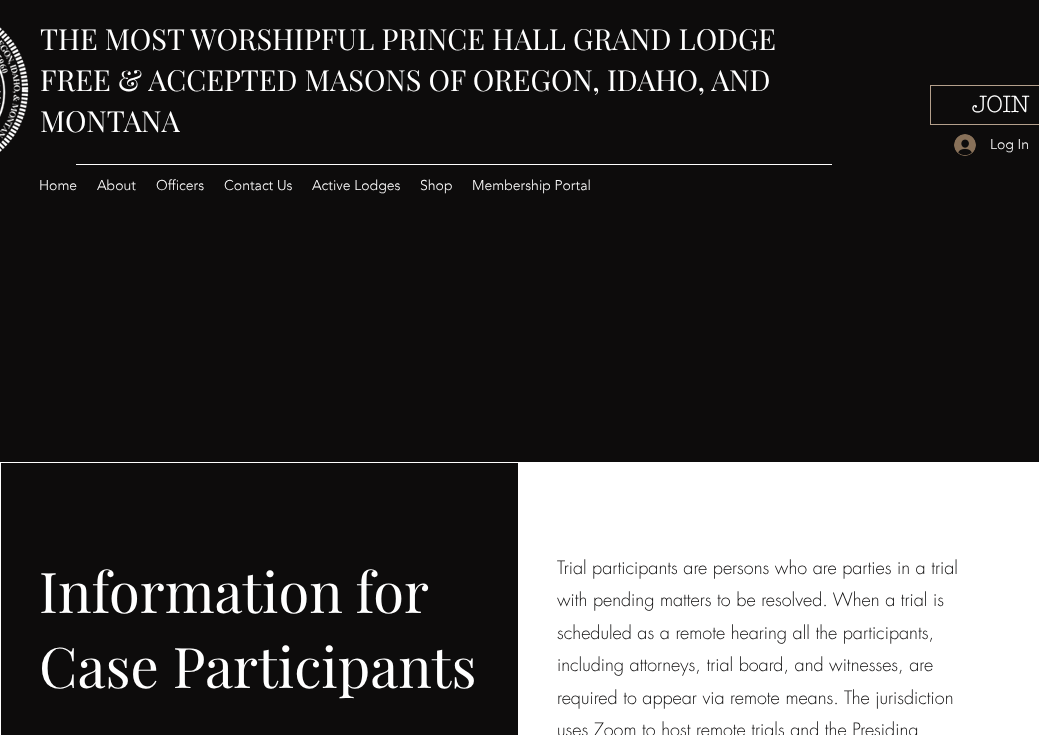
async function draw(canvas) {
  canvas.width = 1039
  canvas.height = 735
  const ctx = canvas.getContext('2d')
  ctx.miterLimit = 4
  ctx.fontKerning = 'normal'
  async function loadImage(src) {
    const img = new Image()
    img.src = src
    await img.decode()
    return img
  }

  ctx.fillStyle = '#fff'
  ctx.fillRect(0, 0, 1039, 735)
  ctx.fillStyle = '#0d0c0c'
  ctx.fillRect(0, 0, 1039, 462)
  ctx.drawImage(await loadImage('image0.png'), 0, 27, 29, 125)
  ctx.font = '29px Playfair Display'
  ctx.fillStyle = '#fff'
  ctx.fillText('THE MOST WORSHIPFUL PRINCE HALL GRAND LODGE', 40, 50)
  ctx.fillText('FREE & ACCEPTED MASONS OF OREGON, IDAHO, AND', 40, 91)
  ctx.fillText('MONTANA', 40, 132)
  ctx.strokeStyle = '#b4a08c'
  ctx.strokeRect(930.5, 85.5, 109, 39)
  ctx.font = 'bold 23px "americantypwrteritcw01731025"'
  ctx.fillText('JOIN', 972, 112)
  ctx.drawImage(await loadImage('image1.png'), 954, 134, 22, 22)
  ctx.font = '300 14px "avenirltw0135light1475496"'
  ctx.fillText('Log In', 990, 149)
  ctx.fillRect(76, 164, 756, 1)
  ctx.fillText('Home', 39, 190)
  ctx.fillText('About', 97, 190)
  ctx.fillText('Officers', 156, 190)
  ctx.fillText('Contact Us', 224, 190)
  ctx.fillText('Active Lodges', 312, 190)
  ctx.fillText('Shop', 420, 190)
  ctx.fillText('Membership Portal', 472, 190)
  ctx.fillStyle = '#0d0c0c'
  ctx.fillRect(1, 463, 517, 272)
  ctx.wordSpacing = '-1px'
  ctx.font = '56px Playfair Display'
  ctx.fillStyle = '#fff'
  ctx.fillText('Information for', 39, 613)
  ctx.wordSpacing = '0px'
  ctx.fillText('Case Participants', 39, 688)
  ctx.font = '300 18px futura'
  ctx.fillStyle = '#0d0c0c'
  ctx.fillText('Trial participants are persons who are parties in a trial', 557, 574)
  ctx.fillText('with pending matters to be resolved. When a trial is', 557, 606)
  ctx.fillText('scheduled as a remote hearing all the participants,', 557, 639)
  ctx.fillText('including attorneys, trial board, and witnesses, are', 557, 671)
  ctx.fillText('required to appear via remote means. The jurisdiction', 557, 704)
  ctx.fillText('uses Zoom to host remote trials and the Presiding', 557, 736)
}

draw(document.querySelector('canvas'))
